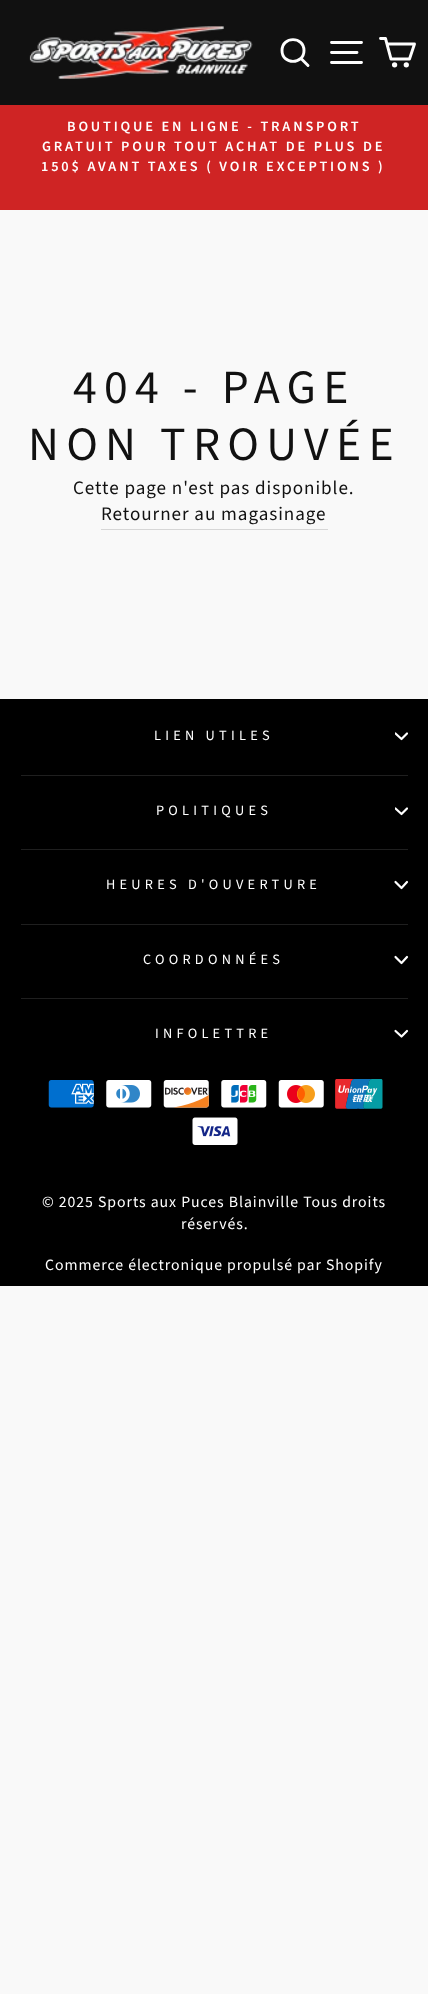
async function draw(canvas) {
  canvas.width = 428
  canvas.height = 1994
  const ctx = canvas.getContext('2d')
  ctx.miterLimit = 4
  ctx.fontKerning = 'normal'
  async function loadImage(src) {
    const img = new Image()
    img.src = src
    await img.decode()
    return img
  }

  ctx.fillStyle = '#f9f9f9'
  ctx.fillRect(0, 0, 428, 1994)
  ctx.fillStyle = '#111'
  ctx.fillRect(0, 0, 428, 105)
  ctx.drawImage(await loadImage('image0.png'), 29, 26, 224, 53)
  ctx.beginPath()
  ctx.moveTo(304, 50.5)
  ctx.bezierCurveTo(304, 65, 282, 65, 282, 50.5)
  ctx.bezierCurveTo(282, 36, 304, 36, 304, 50.5)
  ctx.closePath()
  ctx.moveTo(308, 65.5)
  ctx.lineTo(301, 58.5)
  ctx.strokeStyle = '#fff'
  ctx.lineWidth = 2.9
  ctx.lineCap = 'round'
  ctx.lineJoin = 'round'
  ctx.stroke()
  ctx.beginPath()
  ctx.moveTo(331.5, 42.5)
  ctx.lineTo(361.5, 42.5)
  ctx.moveTo(331.5, 52.5)
  ctx.lineTo(357, 52.5)
  ctx.moveTo(331.5, 62.5)
  ctx.lineTo(361.5, 62.5)
  ctx.stroke()
  ctx.beginPath()
  ctx.moveTo(387, 44)
  ctx.lineTo(414.5, 44)
  ctx.lineTo(409.5, 59)
  ctx.lineTo(391, 59)
  ctx.lineTo(385.5, 38.5)
  ctx.lineTo(380.5, 38.5)
  ctx.stroke()
  ctx.beginPath()
  ctx.arc(394.6, 64.8, 1.2, 0, 2 * Math.PI)
  ctx.stroke()
  ctx.beginPath()
  ctx.arc(406.3, 64.8, 1.2, 0, 2 * Math.PI)
  ctx.stroke()
  ctx.fillStyle = '#cf2424'
  ctx.fillRect(0, 105, 428, 105)
  ctx.letterSpacing = '2.85px'
  ctx.font = '600 14.3px Source Sans Pro'
  ctx.fillStyle = '#fff'
  ctx.fillText('BOUTIQUE EN LIGNE - TRANSPORT', 67, 131)
  ctx.fillText('GRATUIT POUR TOUT ACHAT DE PLUS DE', 42, 151)
  ctx.fillText('150$ AVANT TAXES ( VOIR EXCEPTIONS )', 41, 171)
  ctx.letterSpacing = '7.25px'
  ctx.font = '47.75px Source Sans Pro'
  ctx.fillStyle = '#111'
  ctx.fillText('404 - PAGE', 73, 403)
  ctx.fillText('NON TROUVÉE', 28, 460)
  ctx.letterSpacing = '0.95px'
  ctx.font = '19.1px Source Sans Pro'
  ctx.fillText('Cette page n\'est pas disponible.', 73, 494)
  ctx.fillStyle = '#d6d6d6'
  ctx.fillRect(101, 529, 227, 1)
  ctx.fillStyle = '#111'
  ctx.fillText('Retourner au magasinage', 101, 520)
  ctx.fillStyle = '#000'
  ctx.fillRect(0, 699, 428, 587)
  ctx.letterSpacing = '4.25px'
  ctx.font = '14.3px Source Sans Pro'
  ctx.fillStyle = '#fff'
  ctx.fillText('LIEN UTILES', 154, 740)
  ctx.save()
  ctx.beginPath()
  ctx.rect(395, 730, 13, 13)
  ctx.clip()
  ctx.beginPath()
  ctx.moveTo(395.5, 733.5)
  ctx.lineTo(401.5, 739)
  ctx.lineTo(407, 733.5)
  ctx.lineWidth = 2.2
  ctx.stroke()
  ctx.restore()
  ctx.fillStyle = '#1f1f1f'
  ctx.fillRect(21, 775, 387, 1)
  ctx.fillStyle = '#fff'
  ctx.fillText('POLITIQUES', 156, 815)
  ctx.save()
  ctx.beginPath()
  ctx.rect(395, 805, 13, 13)
  ctx.clip()
  ctx.beginPath()
  ctx.moveTo(395.5, 808.5)
  ctx.lineTo(401.5, 814)
  ctx.lineTo(407, 808.5)
  ctx.lineWidth = 2.2
  ctx.stroke()
  ctx.restore()
  ctx.fillStyle = '#1f1f1f'
  ctx.fillRect(21, 849, 387, 1)
  ctx.fillStyle = '#fff'
  ctx.fillText('HEURES D\'OUVERTURE', 106, 889)
  ctx.beginPath()
  ctx.moveTo(395.5, 882)
  ctx.lineTo(401.5, 888)
  ctx.lineTo(407, 882)
  ctx.lineWidth = 2.2
  ctx.stroke()
  ctx.fillStyle = '#1f1f1f'
  ctx.fillRect(21, 924, 387, 1)
  ctx.fillStyle = '#fff'
  ctx.fillText('COORDONNÉES', 143, 964)
  ctx.beginPath()
  ctx.moveTo(395.5, 957)
  ctx.lineTo(401.5, 963)
  ctx.lineTo(407, 957)
  ctx.stroke()
  ctx.fillStyle = '#1f1f1f'
  ctx.fillRect(21, 998, 387, 1)
  ctx.fillStyle = '#fff'
  ctx.fillText('INFOLETTRE', 155, 1038)
  ctx.beginPath()
  ctx.moveTo(395.5, 1031)
  ctx.lineTo(401.5, 1036.5)
  ctx.lineTo(407, 1031)
  ctx.stroke()
  ctx.drawImage(await loadImage('image1.png'), 48, 1080, 46, 28)
  ctx.drawImage(await loadImage('image2.png'), 106, 1080, 46, 28)
  ctx.drawImage(await loadImage('image3.png'), 163, 1080, 46, 28)
  ctx.drawImage(await loadImage('image4.png'), 221, 1080, 46, 28)
  ctx.drawImage(await loadImage('image5.png'), 278, 1080, 46, 28)
  ctx.drawImage(await loadImage('image6.png'), 335, 1079, 48, 30)
  ctx.drawImage(await loadImage('image7.png'), 192, 1117, 46, 28)
  ctx.letterSpacing = '0.95px'
  ctx.font = '15.75px Source Sans Pro'
  ctx.fillText('© 2025 Sports aux Puces Blainville Tous droits', 42, 1207)
  ctx.fillText('réservés.', 181, 1229)
  ctx.fillText('Commerce électronique propulsé par Shopify', 45, 1270)
}

draw(document.querySelector('canvas'))
